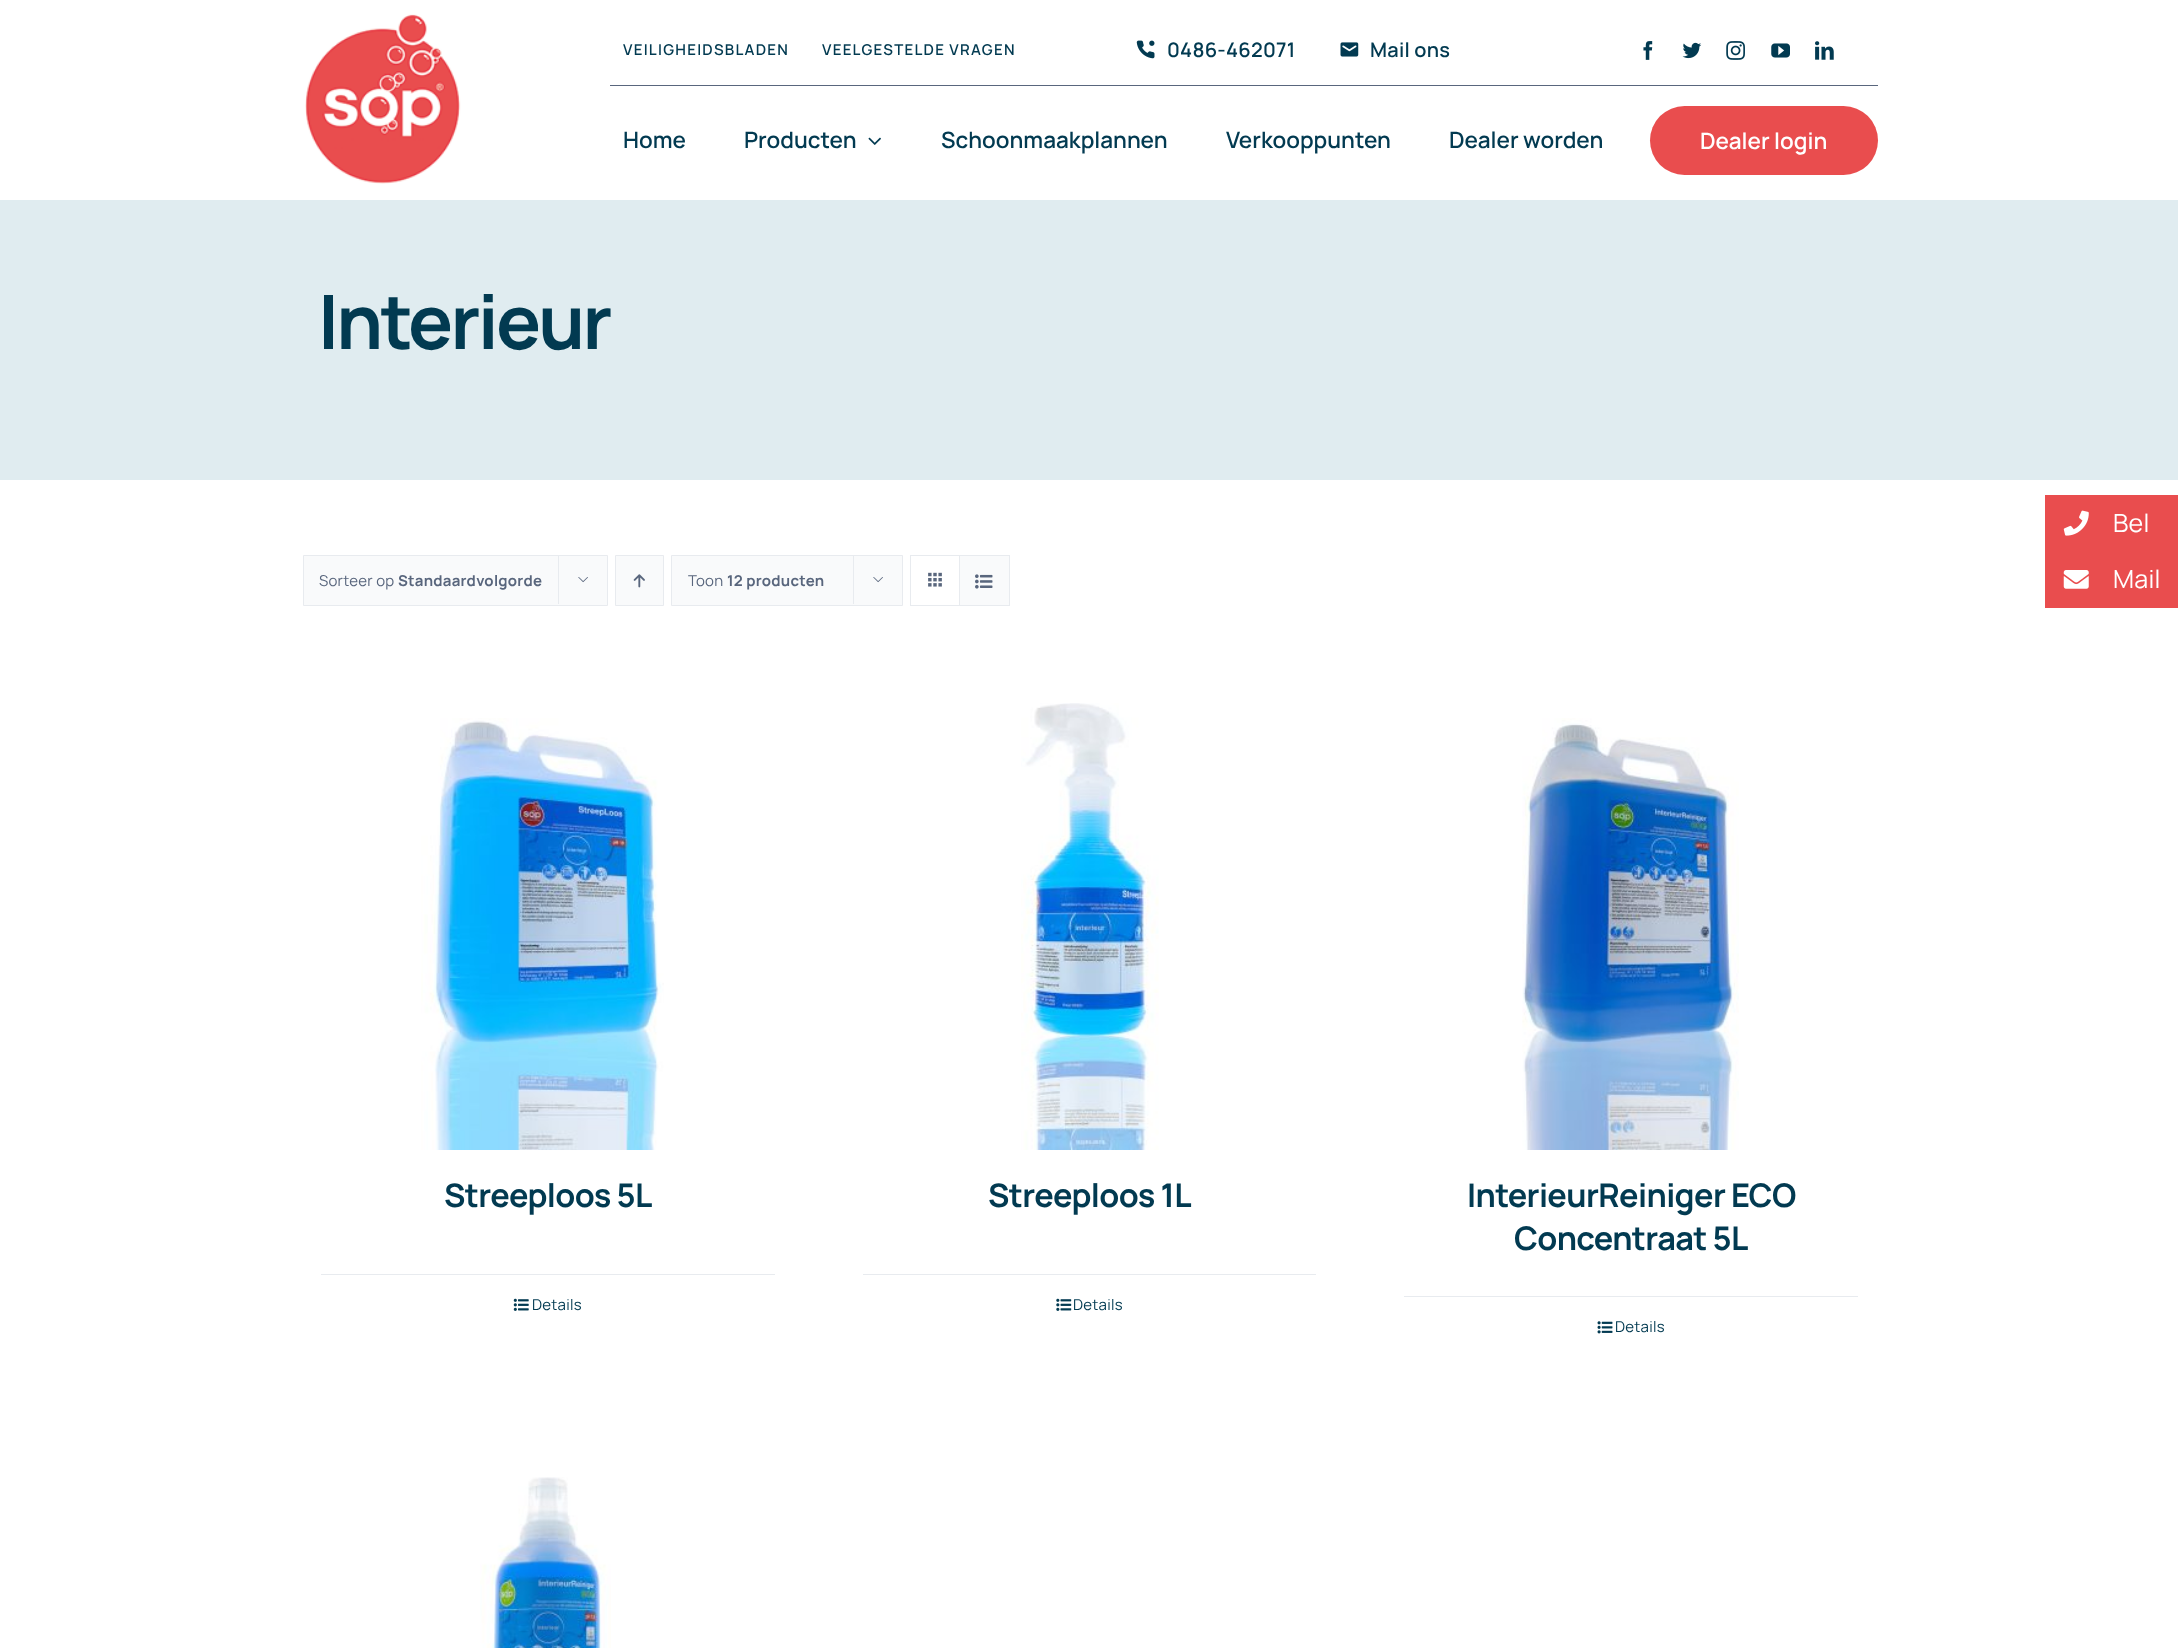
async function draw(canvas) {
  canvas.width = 2178
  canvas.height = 1648
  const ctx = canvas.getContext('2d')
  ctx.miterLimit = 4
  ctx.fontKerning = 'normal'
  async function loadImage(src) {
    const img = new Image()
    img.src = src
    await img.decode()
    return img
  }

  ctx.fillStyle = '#fff'
  ctx.fillRect(0, 0, 2178, 1648)
  ctx.drawImage(await loadImage('image0.png'), 305, 14, 156, 170)
  ctx.fillStyle = '#59667d'
  ctx.fillRect(610, 85, 1268, 1)
  ctx.letterSpacing = '1.25px'
  ctx.font = '600 15px Manrope'
  ctx.fillStyle = '#023a51'
  ctx.fillText('VEILIGHEIDSBLADEN', 623, 55)
  ctx.fillText('VEELGESTELDE VRAGEN', 822, 55)
  ctx.drawImage(await loadImage('image1.png'), 1136, 40, 19, 19)
  ctx.letterSpacing = '0.25px'
  ctx.font = '600 20px Manrope'
  ctx.fillText('0486-462071', 1167, 57)
  ctx.drawImage(await loadImage('image2.png'), 1340, 42, 19, 15)
  ctx.fillText('Mail ons', 1370, 57)
  ctx.drawImage(await loadImage('image3.png'), 1643, 41, 10, 19)
  ctx.drawImage(await loadImage('image4.png'), 1682, 42, 20, 17)
  ctx.drawImage(await loadImage('image5.png'), 1726, 41, 19, 19)
  ctx.drawImage(await loadImage('image6.png'), 1771, 43, 19, 15)
  ctx.drawImage(await loadImage('image7.png'), 1815, 41, 19, 19)
  ctx.letterSpacing = '0px'
  ctx.font = '600 22.5px Manrope'
  ctx.fillText('Home', 623, 148)
  ctx.fillText('Producten', 744, 148)
  ctx.drawImage(await loadImage('image8.png'), 868, 137, 13, 8)
  ctx.fillText('Schoonmaakplannen', 941, 148)
  ctx.fillText('Verkooppunten', 1226, 148)
  ctx.fillText('Dealer worden', 1449, 148)
  ctx.fillStyle = '#e94d4e'
  ctx.beginPath()
  ctx.roundRect(1650, 106, 228, 69, 34.5)
  ctx.fill()
  ctx.fillStyle = '#fff'
  ctx.fillText('Dealer login', 1700, 149)
  ctx.fillStyle = '#e0ecf0'
  ctx.fillRect(0, 200, 2178, 280)
  ctx.letterSpacing = '-2.75px'
  ctx.font = 'bold 75px Manrope'
  ctx.fillStyle = '#023a51'
  ctx.fillText('Interieur', 318, 349)
  ctx.fillStyle = '#f9fafb'
  ctx.beginPath()
  ctx.rect(303.5, 555.5, 304, 50)
  ctx.fill()
  ctx.strokeStyle = '#e8ebef'
  ctx.stroke()
  ctx.letterSpacing = '0.25px'
  ctx.font = '15px Manrope'
  ctx.fillStyle = '#59667d'
  ctx.fillText('Sorteer op', 319, 586)
  ctx.font = 'bold 15px Manrope'
  ctx.fillText('Standaardvolgorde', 398, 586)
  ctx.fillStyle = '#e8ebef'
  ctx.fillRect(558, 555, 1, 49)
  ctx.drawImage(await loadImage('image9.png'), 578, 577, 10, 6)
  ctx.fillStyle = '#f9fafb'
  ctx.beginPath()
  ctx.rect(615.5, 555.5, 48, 50)
  ctx.fill()
  ctx.stroke()
  ctx.drawImage(await loadImage('image10.png'), 633, 574, 12, 14)
  ctx.beginPath()
  ctx.rect(671.5, 555.5, 231, 50)
  ctx.fill()
  ctx.stroke()
  ctx.font = '15px Manrope'
  ctx.fillStyle = '#59667d'
  ctx.fillText('Toon', 688, 586)
  ctx.font = 'bold 15px Manrope'
  ctx.fillText('12 producten', 727, 586)
  ctx.fillStyle = '#e8ebef'
  ctx.fillRect(853, 555, 1, 49)
  ctx.drawImage(await loadImage('image9.png'), 873, 577, 10, 6)
  ctx.strokeRect(910.5, 555.5, 99, 50)
  ctx.fillRect(959, 556, 1, 49)
  ctx.drawImage(await loadImage('image11.png'), 928, 572, 14, 15)
  ctx.fillStyle = '#f9fafb'
  ctx.fillRect(960, 556, 49, 49)
  ctx.drawImage(await loadImage('image12.png'), 975, 574, 18, 15)
  ctx.drawImage(await loadImage('image13.png'), 421, 718, 243, 432)
  ctx.letterSpacing = '-0.65px'
  ctx.font = 'bold 32.5px Manrope'
  ctx.fillStyle = '#023a51'
  ctx.fillText('Streeploos 5L', 444, 1207)
  ctx.fillStyle = '#e8ebef'
  ctx.fillRect(321, 1274, 454, 1)
  ctx.drawImage(await loadImage('image14.png'), 513, 1298, 16, 13)
  ctx.letterSpacing = '0.25px'
  ctx.font = '15px Manrope'
  ctx.fillStyle = '#023a51'
  ctx.fillText('Details', 532, 1310)
  ctx.drawImage(await loadImage('image15.png'), 1021, 703, 138, 447)
  ctx.letterSpacing = '-0.65px'
  ctx.font = 'bold 32.5px Manrope'
  ctx.fillText('Streeploos 1L', 988, 1207)
  ctx.fillStyle = '#e8ebef'
  ctx.fillRect(863, 1274, 453, 1)
  ctx.drawImage(await loadImage('image16.png'), 1056, 1298, 16, 13)
  ctx.letterSpacing = '0.25px'
  ctx.font = '15px Manrope'
  ctx.fillStyle = '#023a51'
  ctx.fillText('Details', 1073, 1310)
  ctx.drawImage(await loadImage('image17.png'), 1522, 718, 217, 432)
  ctx.letterSpacing = '-0.65px'
  ctx.font = 'bold 32.5px Manrope'
  ctx.fillText('InterieurReiniger ECO', 1467, 1207)
  ctx.fillText('Concentraat 5L', 1514, 1250)
  ctx.fillStyle = '#e8ebef'
  ctx.fillRect(1404, 1296, 454, 1)
  ctx.drawImage(await loadImage('image18.png'), 1597, 1321, 16, 13)
  ctx.letterSpacing = '0.25px'
  ctx.font = '15px Manrope'
  ctx.fillStyle = '#023a51'
  ctx.fillText('Details', 1615, 1332)
  ctx.drawImage(await loadImage('image19.png'), 480, 1477, 131, 171)
  ctx.fillStyle = '#e94d4e'
  ctx.fillRect(2045, 495, 133, 113)
  ctx.drawImage(await loadImage('image20.png'), 2063, 510, 26, 26)
  ctx.font = '25px Manrope'
  ctx.fillStyle = '#fff'
  ctx.fillText('Bel', 2113, 532)
  ctx.drawImage(await loadImage('image21.png'), 2063, 570, 26, 19)
  ctx.fillText('Mail', 2113, 588)
}

draw(document.querySelector('canvas'))
